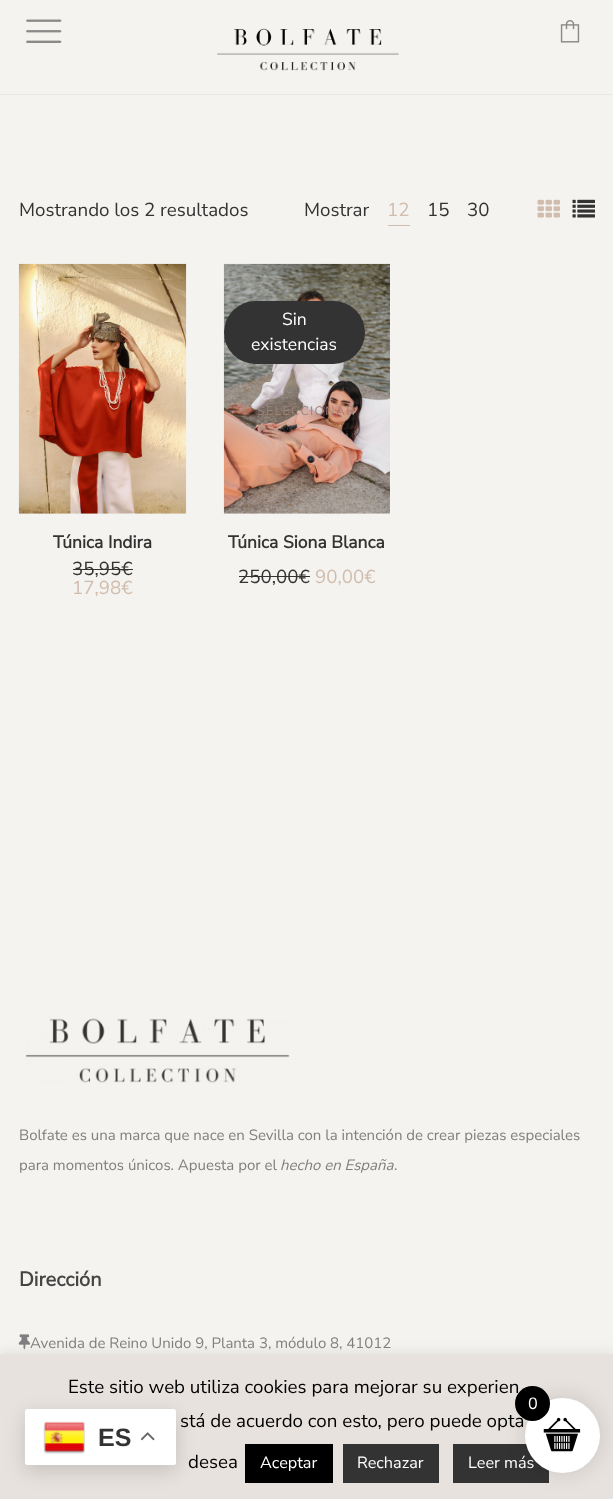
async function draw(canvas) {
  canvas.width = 613
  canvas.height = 1499
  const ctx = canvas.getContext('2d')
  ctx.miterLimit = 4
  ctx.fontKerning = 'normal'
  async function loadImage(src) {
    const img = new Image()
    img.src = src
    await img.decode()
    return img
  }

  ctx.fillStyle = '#f4f3ef'
  ctx.fillRect(0, 0, 613, 1499)
  ctx.drawImage(await loadImage('image0.png'), 26, 19, 36, 24)
  ctx.drawImage(await loadImage('image1.png'), 217, 28, 182, 43)
  ctx.drawImage(await loadImage('image2.png'), 560, 20, 20, 23)
  ctx.fillStyle = '#e8e8e8'
  ctx.fillRect(0, 94, 613, 1)
  ctx.font = '200 18.75px Nunito Sans'
  ctx.fillStyle = '#333'
  ctx.fillText('Mostrando los 2 resultados', 19, 216)
  ctx.fillText('Mostrar', 304, 216)
  ctx.fillStyle = '#d0bdae'
  ctx.fillRect(388, 225, 22, 1)
  ctx.fillText('12', 387, 216)
  ctx.fillStyle = '#333'
  ctx.fillText('15', 427, 216)
  ctx.fillText('30', 467, 216)
  ctx.drawImage(await loadImage('image3.png'), 537, 199, 23, 19)
  ctx.drawImage(await loadImage('image4.png'), 572, 199, 23, 19)
  ctx.drawImage(await loadImage('image5.png'), 18, 263, 169, 251)
  ctx.font = 'bold 17.5px Nunito Sans'
  ctx.fillText('Túnica Indira', 53, 548)
  ctx.font = '200 18.75px Nunito Sans'
  ctx.fillText('35,95€', 72, 575)
  ctx.fillRect(73, 569, 60, 1)
  ctx.fillStyle = '#d0bdae'
  ctx.fillText('17,98€', 72, 594)
  ctx.drawImage(await loadImage('image6.png'), 223, 263, 167, 251)
  ctx.fillStyle = '#333'
  ctx.beginPath()
  ctx.roundRect(224, 301, 141, 63, 31.5)
  ctx.fill()
  ctx.font = '200 17.5px Nunito Sans'
  ctx.fillStyle = '#fff'
  ctx.fillText('Sin', 282, 325)
  ctx.fillText('existencias', 251, 350)
  ctx.letterSpacing = '1.25px'
  ctx.font = '200 12.5px Nunito Sans'
  ctx.fillStyle = '#a08379'
  ctx.fillText('SELECCIONAR', 257, 415)
  ctx.letterSpacing = '0px'
  ctx.font = 'bold 17.5px Nunito Sans'
  ctx.fillStyle = '#333'
  ctx.fillText('Túnica Siona Blanca', 228, 548)
  ctx.font = '200 18.75px Nunito Sans'
  ctx.fillText('250,00€', 238, 583)
  ctx.fillRect(239, 576, 71, 1)
  ctx.fillStyle = '#d0bdae'
  ctx.fillText('90,00€', 315, 583)
  ctx.drawImage(await loadImage('image7.png'), 25, 1018, 265, 65)
  ctx.font = '200 15px Nunito Sans'
  ctx.fillStyle = '#7f7f7f'
  ctx.fillText('Bolfate es una marca que nace en Sevilla con la intención de crear piezas especiales', 19, 1140)
  ctx.fillText('para momentos únicos. Apuesta por el', 19, 1170)
  ctx.font = 'italic 200 15px Nunito Sans'
  ctx.fillText('hecho en España', 280, 1170)
  ctx.font = '200 15px Nunito Sans'
  ctx.fillText('.', 394, 1170)
  ctx.font = 'bold 20px Nunito Sans'
  ctx.fillStyle = '#444'
  ctx.fillText('Dirección', 19, 1286)
  ctx.drawImage(await loadImage('image8.png'), 18, 1334, 12, 16)
  ctx.font = '200 15px Nunito Sans'
  ctx.fillStyle = '#7f7f7f'
  ctx.fillText('Avenida de Reino Unido 9, Planta 3, módulo 8, 41012', 30, 1348)
  ctx.fillStyle = '#acabab4d'
  ctx.filter = 'blur(6px)'
  ctx.beginPath()
  ctx.rect(0, 1353, 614, 146)
  ctx.fill()
  ctx.filter = 'none'
  ctx.fillStyle = '#e8e2de'
  ctx.fillRect(0, 1354, 613, 145)
  ctx.font = '200 18.75px Nunito Sans'
  ctx.fillStyle = '#000'
  ctx.fillText('Este sitio web utiliza cookies para mejorar su experien', 68, 1393)
  ctx.fillText('stá de acuerdo con esto, pero puede opta', 180, 1427)
  ctx.fillText('desea', 188, 1468)
  ctx.fillRect(245, 1444, 88, 39)
  ctx.font = '200 16.25px Nunito Sans'
  ctx.fillStyle = '#fff'
  ctx.fillText('Aceptar', 260, 1468)
  ctx.fillStyle = '#333'
  ctx.fillRect(343, 1444, 96, 39)
  ctx.fillStyle = '#fff'
  ctx.fillText('Rechazar', 357, 1468)
  ctx.fillStyle = '#333'
  ctx.fillRect(453, 1444, 96, 39)
  ctx.fillStyle = '#fff'
  ctx.fillText('Leer más', 468, 1468)
  ctx.fillStyle = '#0000001a'
  ctx.filter = 'blur(9.5px)'
  ctx.beginPath()
  ctx.roundRect(523, 1395, 80, 80, 40)
  ctx.fill()
  ctx.filter = 'none'
  ctx.fillStyle = '#fff'
  ctx.beginPath()
  ctx.arc(562.5, 1435.5, 37.5, 0, 2 * Math.PI)
  ctx.fill()
  ctx.drawImage(await loadImage('image9.png'), 543, 1417, 38, 35)
  ctx.fillStyle = '#000'
  ctx.beginPath()
  ctx.arc(532.5, 1403.5, 17.5, 0, 2 * Math.PI)
  ctx.fill()
  ctx.fillStyle = '#fff'
  ctx.fillText('0', 528, 1409)
  ctx.fillStyle = '#00000026'
  ctx.filter = 'blur(9.5px)'
  ctx.beginPath()
  ctx.roundRect(25, 1415, 151, 56, 2.5)
  ctx.fill()
  ctx.filter = 'none'
  ctx.fillStyle = '#fff'
  ctx.beginPath()
  ctx.roundRect(25, 1409, 151, 56, 2.5)
  ctx.fill()
  ctx.drawImage(await loadImage('image10.png'), 43, 1421, 42, 33)
  ctx.font = 'bold 25px Liberation Sans'
  ctx.fillStyle = '#333'
  ctx.fillText('ES', 98, 1446)
  ctx.drawImage(await loadImage('image11.png'), 141, 1432, 14, 9)
}

draw(document.querySelector('canvas'))
